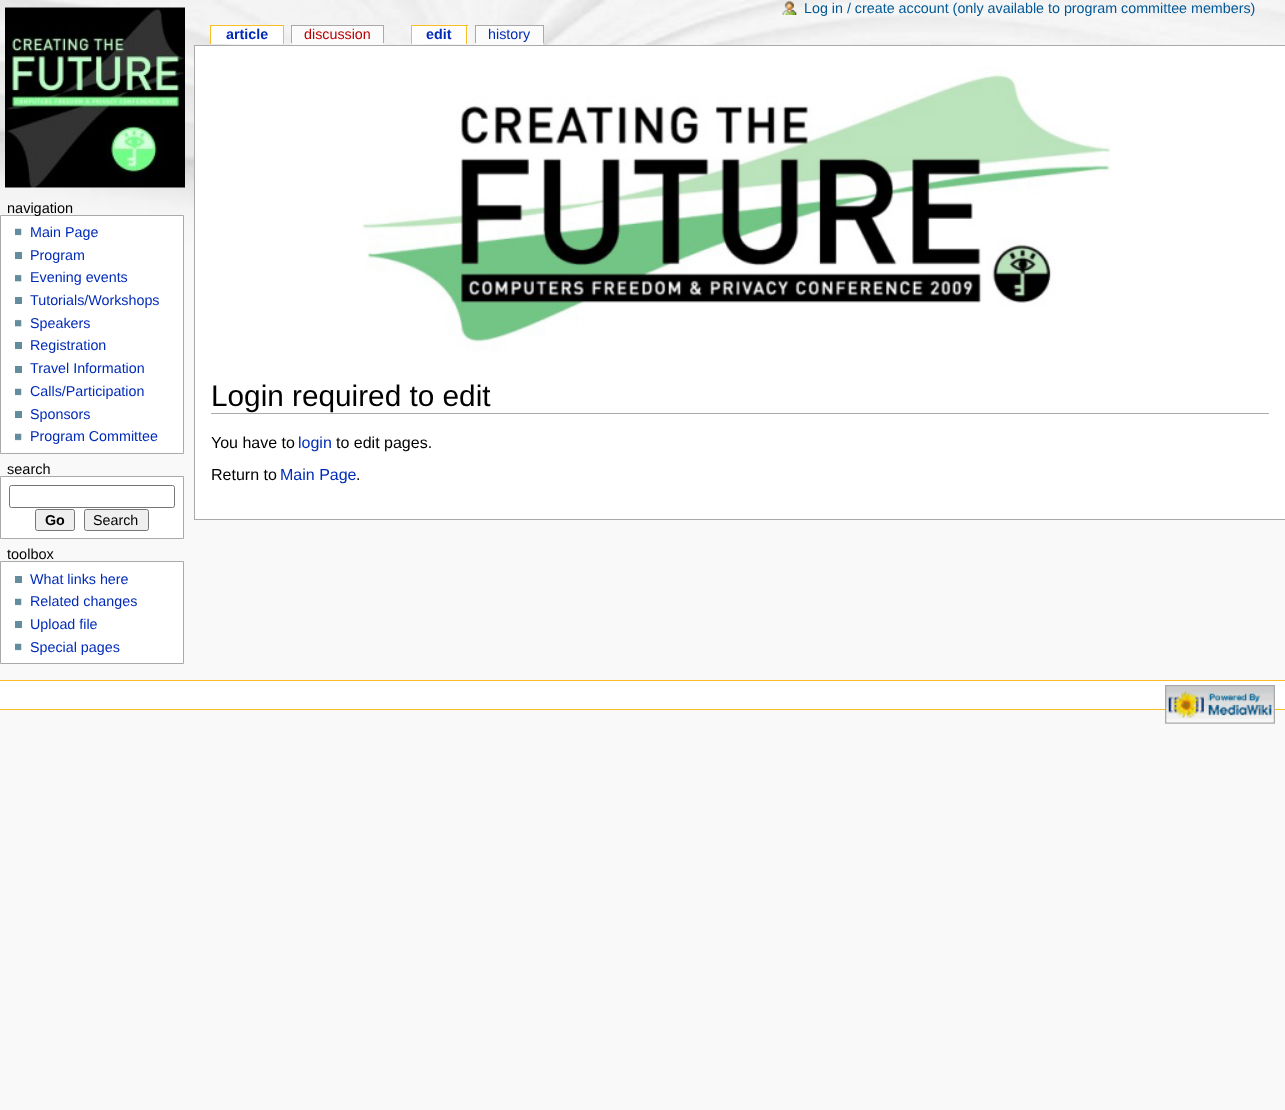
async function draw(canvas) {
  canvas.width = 1285
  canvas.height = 1110
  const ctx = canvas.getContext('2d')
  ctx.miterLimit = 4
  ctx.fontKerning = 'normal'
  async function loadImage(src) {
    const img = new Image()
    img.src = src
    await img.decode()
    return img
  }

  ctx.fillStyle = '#f9f9f9'
  ctx.fillRect(0, 0, 1285, 1110)
  ctx.drawImage(await loadImage('image0.png'), 0, 0, 1285, 243)
  ctx.drawImage(await loadImage('image1.png'), 5, 7, 180, 181)
  ctx.fillStyle = '#fff'
  ctx.fillRect(211, 26, 72, 18)
  ctx.font = 'bold 14.3px Liberation Sans'
  ctx.fillStyle = '#002bb8'
  ctx.fillText('article', 226, 39)
  ctx.fillStyle = '#fabd23'
  ctx.fillRect(210, 25, 74, 1)
  ctx.fillRect(283, 25, 1, 19)
  ctx.fillRect(210, 25, 1, 19)
  ctx.fillStyle = '#fbfbfb'
  ctx.fillRect(293, 26, 90, 19)
  ctx.font = '14.3px Liberation Sans'
  ctx.fillStyle = '#ba0000'
  ctx.fillText('discussion', 304, 39)
  ctx.fillStyle = '#fff'
  ctx.fillRect(292, 26, 1, 17)
  ctx.fillStyle = '#aaa'
  ctx.fillRect(291, 25, 93, 1)
  ctx.fillRect(383, 25, 1, 18)
  ctx.fillRect(291, 25, 1, 18)
  ctx.fillStyle = '#fff'
  ctx.fillRect(412, 26, 56, 18)
  ctx.font = 'bold 14.3px Liberation Sans'
  ctx.fillStyle = '#002bb8'
  ctx.fillText('edit', 426, 39)
  ctx.fillStyle = '#fabd23'
  ctx.fillRect(411, 25, 57, 1)
  ctx.fillRect(466, 25, 1, 19)
  ctx.fillRect(411, 25, 1, 19)
  ctx.fillStyle = '#fbfbfb'
  ctx.fillRect(476, 26, 67, 19)
  ctx.font = '14.3px Liberation Sans'
  ctx.fillStyle = '#002bb8'
  ctx.fillText('history', 488, 39)
  ctx.fillStyle = '#aaa'
  ctx.fillRect(475, 25, 69, 1)
  ctx.fillRect(543, 25, 1, 18)
  ctx.fillRect(475, 25, 1, 18)
  ctx.drawImage(await loadImage('image2.png'), 782, 1, 15, 14)
  ctx.fillStyle = '#005896'
  ctx.fillText('Log in / create account (only available to program committee members)', 804, 13)
  ctx.fillStyle = '#fff'
  ctx.beginPath()
  ctx.rect(0.5, 215.5, 183, 238)
  ctx.fill()
  ctx.strokeStyle = '#aaa'
  ctx.stroke()
  ctx.font = '14.5px Liberation Sans'
  ctx.fillStyle = '#000'
  ctx.fillText('navigation', 7, 213)
  ctx.drawImage(await loadImage('image3.png'), 15, 228, 7, 8)
  ctx.font = '14.3px Liberation Sans'
  ctx.fillStyle = '#002bb8'
  ctx.fillText('Main Page', 30, 237)
  ctx.fillStyle = '#638c9c'
  ctx.fillRect(15, 252, 7, 7)
  ctx.fillStyle = '#002bb8'
  ctx.fillText('Program', 30, 260)
  ctx.drawImage(await loadImage('image4.png'), 15, 274, 7, 8)
  ctx.fillText('Evening events', 30, 282)
  ctx.fillStyle = '#638c9c'
  ctx.fillRect(15, 297, 7, 7)
  ctx.fillStyle = '#002bb8'
  ctx.fillText('Tutorials/Workshops', 30, 305)
  ctx.drawImage(await loadImage('image4.png'), 15, 319, 7, 8)
  ctx.fillText('Speakers', 30, 328)
  ctx.fillStyle = '#638c9c'
  ctx.fillRect(15, 342, 7, 7)
  ctx.fillStyle = '#002bb8'
  ctx.fillText('Registration', 30, 350)
  ctx.fillStyle = '#638c9c'
  ctx.fillRect(15, 366, 7, 7)
  ctx.fillStyle = '#002bb8'
  ctx.fillText('Travel Information', 30, 373)
  ctx.drawImage(await loadImage('image3.png'), 15, 388, 7, 8)
  ctx.fillText('Calls/Participation', 30, 396)
  ctx.fillStyle = '#638c9c'
  ctx.fillRect(15, 411, 7, 7)
  ctx.fillStyle = '#002bb8'
  ctx.fillText('Sponsors', 30, 419)
  ctx.drawImage(await loadImage('image3.png'), 15, 433, 7, 8)
  ctx.fillText('Program Committee', 30, 441)
  ctx.font = '14.5px Liberation Sans'
  ctx.fillStyle = '#000'
  ctx.fillText('search', 7, 474)
  ctx.fillStyle = '#fff'
  ctx.beginPath()
  ctx.rect(0.5, 476.5, 183, 62)
  ctx.fill()
  ctx.stroke()
  ctx.beginPath()
  ctx.roundRect(9.5, 485.5, 165, 22, 2)
  ctx.strokeStyle = '#767676'
  ctx.stroke()
  ctx.fillStyle = '#efefef'
  ctx.beginPath()
  ctx.roundRect(35.5, 509.5, 39, 21, 2)
  ctx.fill()
  ctx.stroke()
  ctx.font = 'bold 14.3px Liberation Sans'
  ctx.fillStyle = '#000'
  ctx.fillText('Go', 45, 525)
  ctx.fillStyle = '#efefef'
  ctx.beginPath()
  ctx.roundRect(84.5, 509.5, 64, 21, 2)
  ctx.fill()
  ctx.stroke()
  ctx.font = '14.3px Liberation Sans'
  ctx.fillStyle = '#000'
  ctx.fillText('Search', 93, 525)
  ctx.font = '14.5px Liberation Sans'
  ctx.fillText('toolbox', 7, 559)
  ctx.fillStyle = '#fff'
  ctx.beginPath()
  ctx.rect(0.5, 561.5, 183, 102)
  ctx.fill()
  ctx.strokeStyle = '#aaa'
  ctx.stroke()
  ctx.fillStyle = '#638c9c'
  ctx.fillRect(15, 576, 7, 7)
  ctx.font = '14.3px Liberation Sans'
  ctx.fillStyle = '#002bb8'
  ctx.fillText('What links here', 30, 584)
  ctx.drawImage(await loadImage('image3.png'), 15, 598, 7, 8)
  ctx.fillText('Related changes', 30, 606)
  ctx.fillStyle = '#638c9c'
  ctx.fillRect(15, 621, 7, 7)
  ctx.fillStyle = '#002bb8'
  ctx.fillText('Upload file', 30, 629)
  ctx.drawImage(await loadImage('image3.png'), 15, 643, 7, 8)
  ctx.fillText('Special pages', 30, 652)
  ctx.fillStyle = '#fff'
  ctx.fillRect(195, 46, 1090, 473)
  ctx.fillStyle = '#aaa'
  ctx.fillRect(194, 45, 1091, 1)
  ctx.fillRect(194, 519, 1091, 1)
  ctx.fillRect(194, 45, 1, 475)
  ctx.drawImage(await loadImage('image5.png'), 361, 66, 750, 286)
  ctx.fillRect(211, 413, 1058, 1)
  ctx.font = '29.75px Liberation Sans'
  ctx.fillStyle = '#000'
  ctx.fillText('Login required to edit', 211, 406)
  ctx.font = '16px Liberation Sans'
  ctx.fillText('You have to', 211, 448)
  ctx.fillStyle = '#002bb8'
  ctx.fillText('login', 298, 448)
  ctx.fillStyle = '#000'
  ctx.fillText('to edit pages.', 336, 448)
  ctx.fillText('Return to', 211, 480)
  ctx.fillStyle = '#002bb8'
  ctx.fillText('Main Page', 280, 480)
  ctx.fillStyle = '#000'
  ctx.fillText('.', 356, 480)
  ctx.fillStyle = '#fff'
  ctx.fillRect(0, 681, 1285, 28)
  ctx.fillStyle = '#fabd23'
  ctx.fillRect(0, 680, 1285, 1)
  ctx.fillRect(0, 709, 1285, 1)
  ctx.drawImage(await loadImage('image6.png'), 1165, 685, 110, 39)
}

draw(document.querySelector('canvas'))
